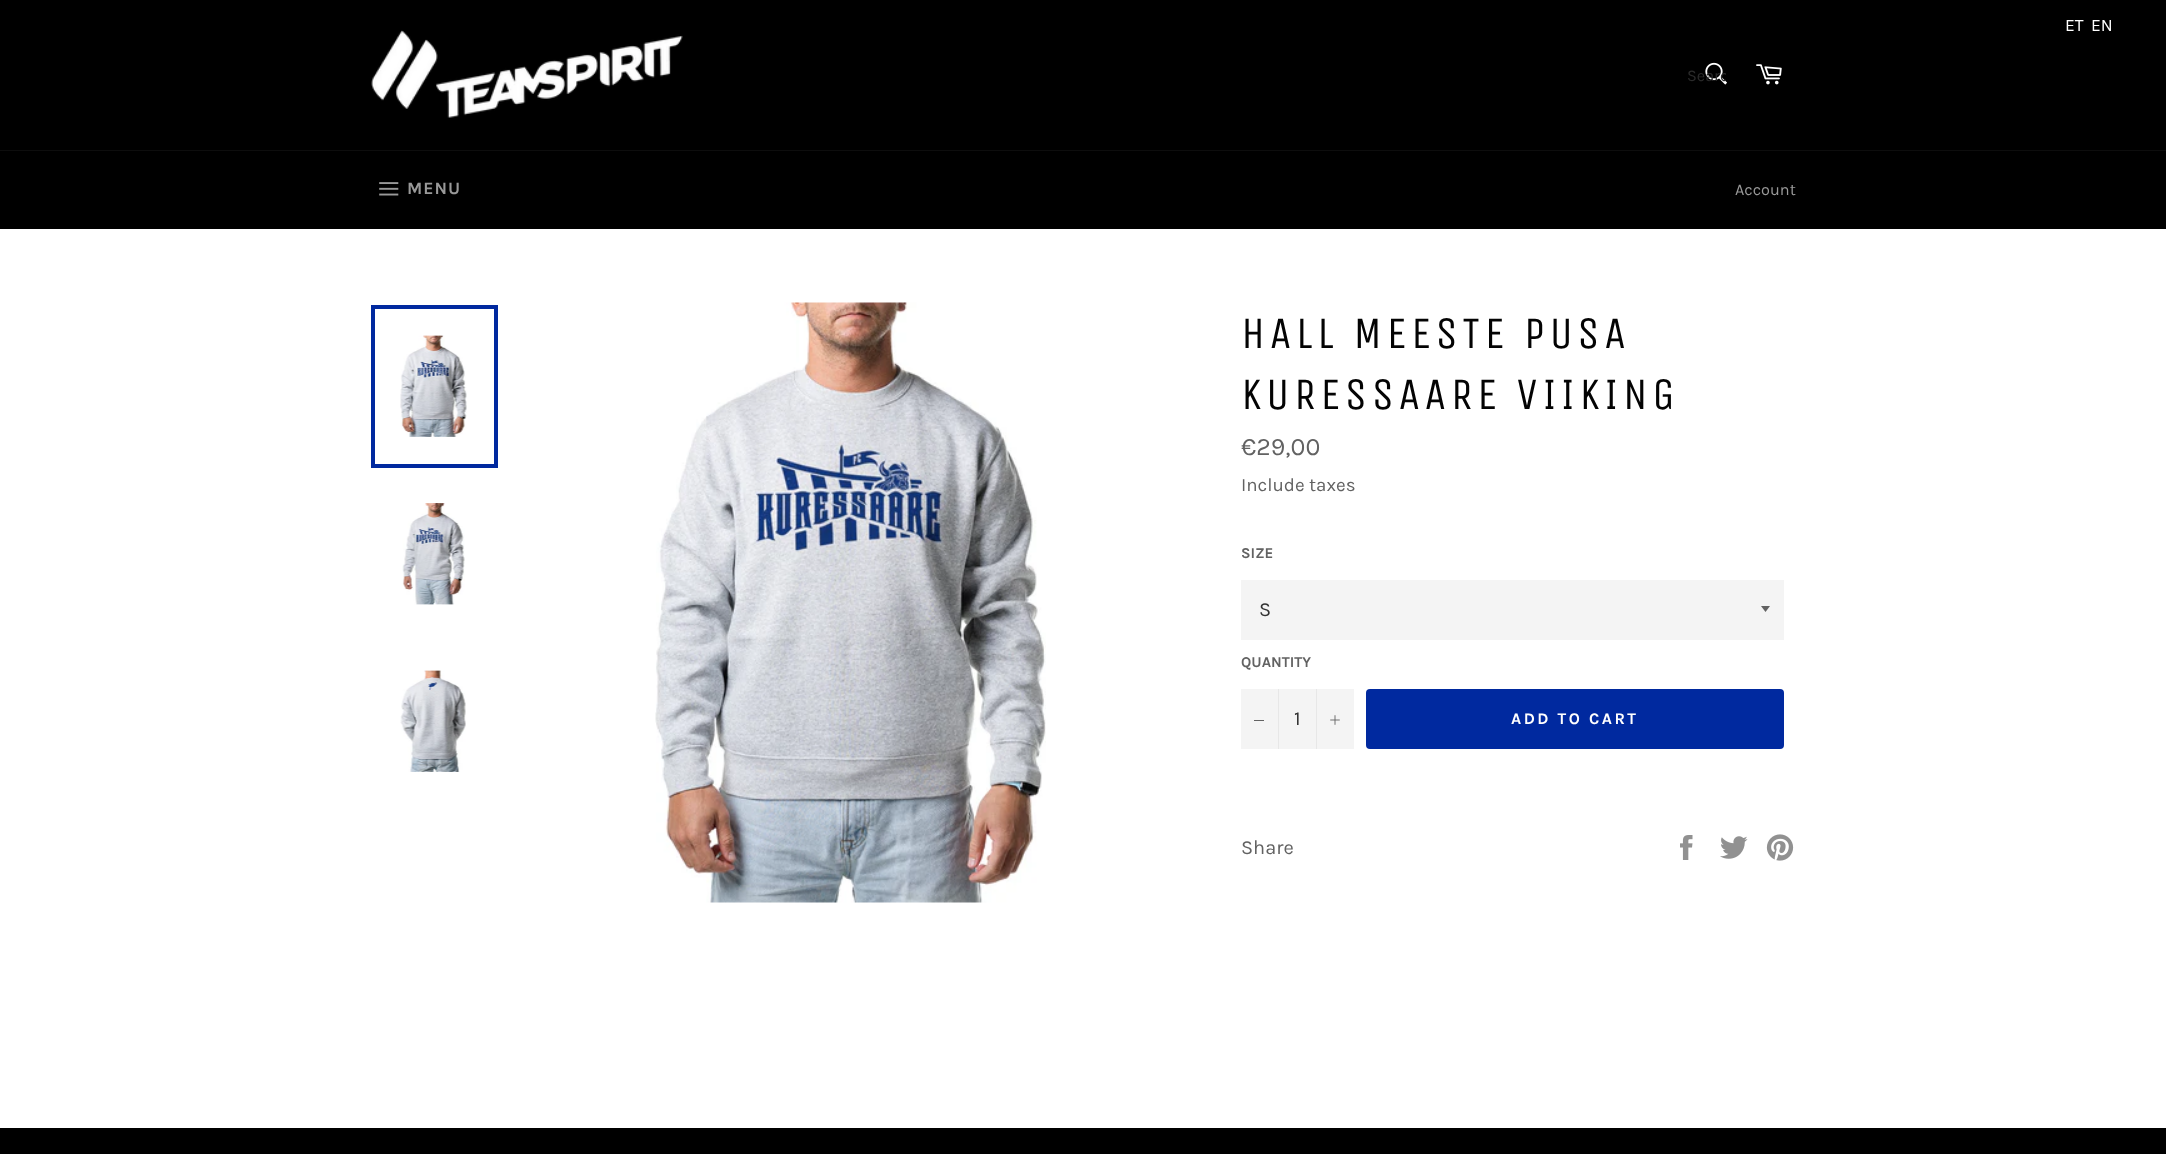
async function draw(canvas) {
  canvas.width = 2166
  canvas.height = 1154
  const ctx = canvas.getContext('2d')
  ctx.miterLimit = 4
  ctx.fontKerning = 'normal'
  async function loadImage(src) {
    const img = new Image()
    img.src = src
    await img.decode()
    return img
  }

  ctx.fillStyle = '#fff'
  ctx.fillRect(0, 0, 2166, 1154)
  ctx.fillStyle = '#000'
  ctx.fillRect(0, 0, 2166, 150)
  ctx.font = '17.5px Karla'
  ctx.fillStyle = '#fff'
  ctx.fillText('ET', 2065, 31)
  ctx.fillText('EN', 2091, 31)
  ctx.drawImage(await loadImage('image0.png'), 371, 30, 312, 88)
  ctx.drawImage(await loadImage('image1.png'), 1705, 62, 22, 23)
  ctx.save()
  ctx.beginPath()
  ctx.rect(1686, 66, 40, 19)
  ctx.clip()
  ctx.font = '16.25px Karla'
  ctx.fillStyle = '#2b2b2b'
  ctx.fillText('Searc', 1687, 81)
  ctx.restore()
  ctx.drawImage(await loadImage('image2.png'), 1756, 64, 26, 21)
  ctx.fillStyle = '#000'
  ctx.fillRect(0, 151, 2166, 78)
  ctx.fillStyle = '#0d0d0d'
  ctx.fillRect(0, 150, 2166, 1)
  ctx.drawImage(await loadImage('image3.png'), 379, 182, 20, 14)
  ctx.letterSpacing = '1px'
  ctx.font = 'bold 17.5px Karla'
  ctx.fillStyle = '#999'
  ctx.fillText('MENU', 407, 194)
  ctx.letterSpacing = '0px'
  ctx.font = '16.25px Karla'
  ctx.fillText('Account', 1735, 195)
  ctx.drawImage(await loadImage('image4.png'), 400, 335, 67, 102)
  ctx.strokeStyle = '#00299f'
  ctx.lineWidth = 4
  ctx.strokeRect(373, 307, 123, 159)
  ctx.drawImage(await loadImage('image5.png'), 402, 503, 63, 102)
  ctx.drawImage(await loadImage('image6.png'), 400, 670, 66, 102)
  ctx.drawImage(await loadImage('image7.png'), 655, 302, 391, 601)
  ctx.letterSpacing = '4.5px'
  ctx.font = '45px Unica One'
  ctx.fillStyle = '#030303'
  ctx.fillText('HALL MEESTE PUSA', 1241, 348)
  ctx.fillText('KURESSAARE VIIKING', 1241, 409)
  ctx.letterSpacing = '0px'
  ctx.font = '25px Karla'
  ctx.fillStyle = '#626262'
  ctx.fillText('€29,00', 1241, 455)
  ctx.font = '18.75px Karla'
  ctx.fillText('Include taxes', 1241, 491)
  ctx.font = 'bold 15px Karla'
  ctx.fillText('SIZE', 1241, 558)
  ctx.fillStyle = '#f4f4f4'
  ctx.fillRect(1241, 580, 543, 60)
  ctx.fillStyle = '#626262'
  ctx.beginPath()
  ctx.moveTo(1761, 606)
  ctx.lineTo(1765.5, 612)
  ctx.lineTo(1770, 606)
  ctx.closePath()
  ctx.fill()
  ctx.font = '20px Karla'
  ctx.fillStyle = '#333'
  ctx.fillText('S', 1259, 616)
  ctx.font = 'bold 15px Karla'
  ctx.fillStyle = '#626262'
  ctx.fillText('QUANTITY', 1241, 667)
  ctx.fillStyle = '#f4f4f4'
  ctx.fillRect(1241, 689, 113, 60)
  ctx.fillStyle = '#e7e7e7'
  ctx.fillRect(1278, 689, 1, 60)
  ctx.fillStyle = '#626262'
  ctx.fillRect(1254, 720, 10, 1)
  ctx.font = '20px Karla'
  ctx.fillStyle = '#333'
  ctx.fillText('1', 1294, 725)
  ctx.fillStyle = '#e7e7e7'
  ctx.fillRect(1316, 689, 1, 60)
  ctx.drawImage(await loadImage('image8.png'), 1330, 715, 10, 10)
  ctx.fillStyle = '#00299f'
  ctx.beginPath()
  ctx.roundRect(1366, 689, 418, 60, 4)
  ctx.fill()
  ctx.letterSpacing = '2.5px'
  ctx.font = 'bold 16.25px Karla'
  ctx.fillStyle = '#fff'
  ctx.fillText('ADD TO CART', 1511, 724)
  ctx.letterSpacing = '0px'
  ctx.font = '20px Karla'
  ctx.fillStyle = '#626262'
  ctx.fillText('Share', 1241, 854)
  ctx.drawImage(await loadImage('image9.png'), 1680, 835, 13, 25)
  ctx.drawImage(await loadImage('image10.png'), 1720, 836, 28, 23)
  ctx.drawImage(await loadImage('image11.png'), 1766, 834, 28, 27)
  ctx.fillStyle = '#000'
  ctx.fillRect(0, 1128, 2166, 26)
}

draw(document.querySelector('canvas'))
